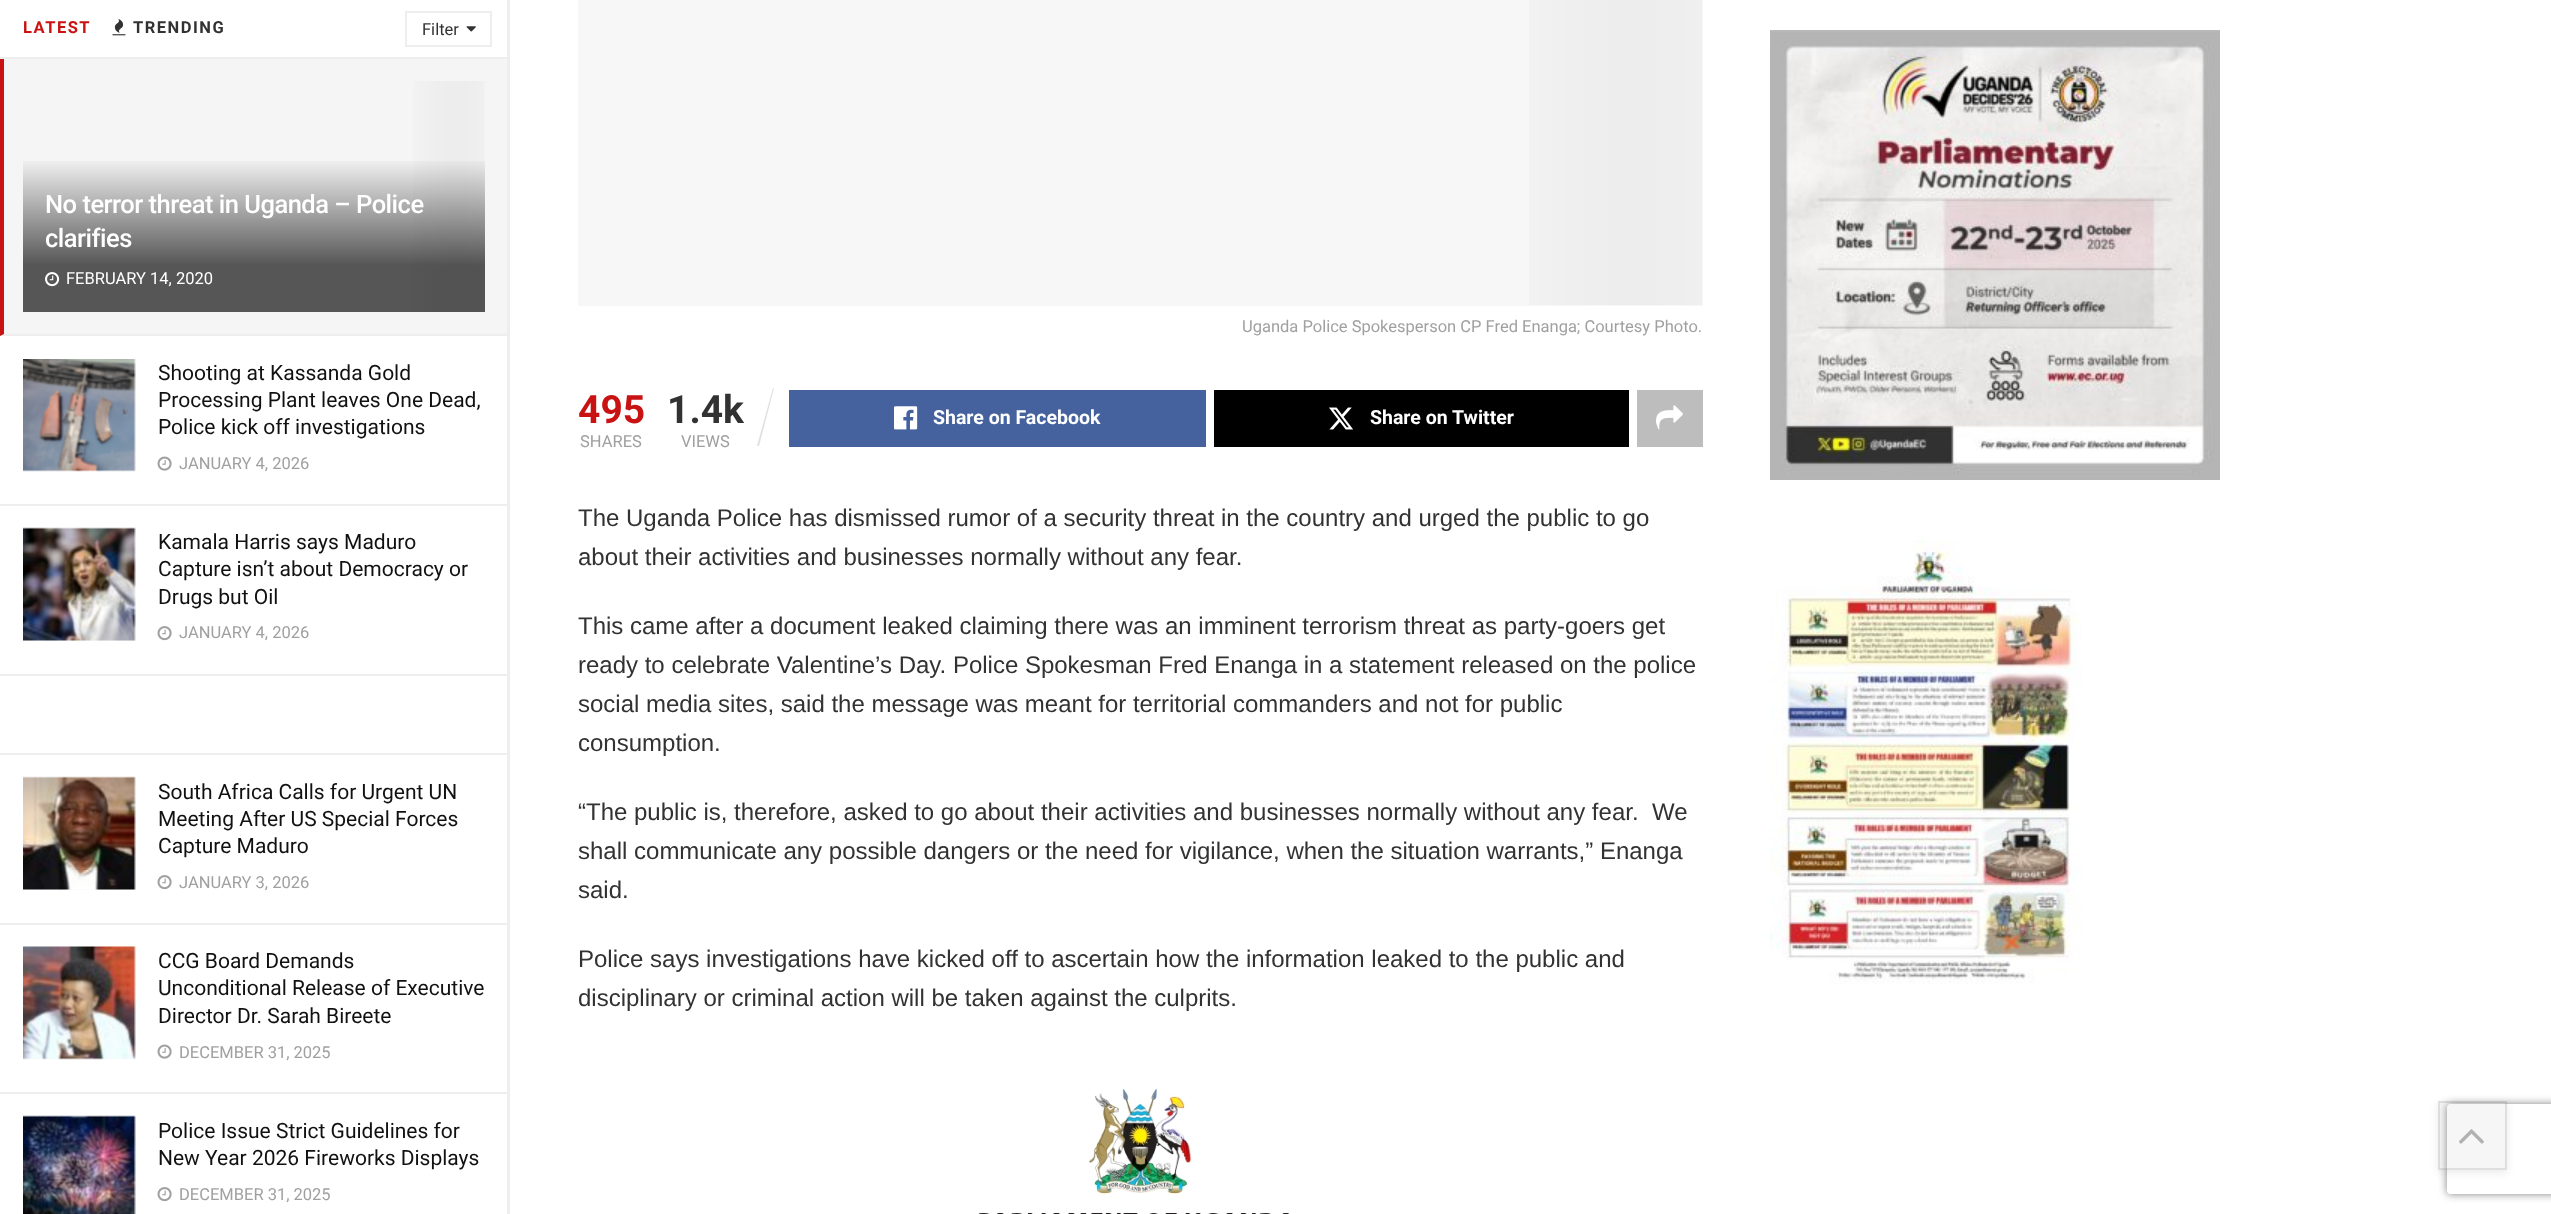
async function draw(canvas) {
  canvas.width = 2551
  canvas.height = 1214
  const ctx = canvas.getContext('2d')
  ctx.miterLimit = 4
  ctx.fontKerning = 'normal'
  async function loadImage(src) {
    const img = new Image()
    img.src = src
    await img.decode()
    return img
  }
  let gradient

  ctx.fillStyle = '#fff'
  ctx.fillRect(0, 0, 2551, 1214)
  ctx.fillStyle = '#eee'
  ctx.fillRect(507, 0, 3, 1214)
  ctx.fillRect(0, 57, 507, 2)
  ctx.letterSpacing = '1.5px'
  ctx.font = 'bold 16.5px Roboto'
  ctx.fillStyle = '#c91212'
  ctx.fillText('LATEST', 23, 33)
  ctx.drawImage(await loadImage('image0.png'), 112, 19, 14, 17)
  ctx.fillStyle = '#323232'
  ctx.fillText('TRENDING', 133, 33)
  ctx.strokeStyle = '#eee'
  ctx.lineWidth = 2
  ctx.strokeRect(406, 12, 85, 34)
  ctx.letterSpacing = '0px'
  ctx.font = '16.5px Roboto'
  ctx.fillText('Filter', 422, 35)
  ctx.drawImage(await loadImage('image1.png'), 466, 26, 10, 6)
  ctx.fillStyle = '#f5f5f5'
  ctx.fillRect(0, 59, 507, 277)
  ctx.fillStyle = '#eee'
  ctx.beginPath()
  ctx.moveTo(507, 336)
  ctx.lineTo(0, 336)
  ctx.lineTo(4, 334)
  ctx.lineTo(507, 334)
  ctx.closePath()
  ctx.fill()
  ctx.save()
  ctx.beginPath()
  ctx.rect(0, 59, 507, 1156)
  ctx.clip()
  ctx.fillStyle = '#c91212'
  ctx.beginPath()
  ctx.moveTo(0, 336)
  ctx.lineTo(0, 58)
  ctx.lineTo(4, 58)
  ctx.lineTo(4, 334)
  ctx.closePath()
  ctx.fill()
  ctx.restore()
  ctx.drawImage(await loadImage('image3.png'), 413, 81, 72, 231)
  gradient = ctx.createLinearGradient(254, 157, 254, 312)
  gradient.addColorStop(0, '#00000000')
  gradient.addColorStop(0.7, '#000000a6')
  ctx.fillStyle = gradient
  ctx.fillRect(23, 161, 462, 151)
  ctx.letterSpacing = '-0.5px'
  ctx.font = '500 25.5px Roboto'
  ctx.fillStyle = '#fff'
  ctx.fillText('No terror threat in Uganda – Police', 45, 213)
  ctx.fillText('clarifies', 45, 247)
  ctx.drawImage(await loadImage('image2.png'), 45, 272, 15, 15)
  ctx.letterSpacing = '0px'
  ctx.font = '16.5px Roboto'
  ctx.fillText('FEBRUARY 14, 2020', 66, 284)
  ctx.fillStyle = '#eee'
  ctx.fillRect(0, 504, 507, 2)
  ctx.fillStyle = '#f7f7f7'
  ctx.fillRect(23, 359, 112, 112)
  ctx.drawImage(await loadImage('image4.png'), 23, 359, 113, 113)
  ctx.font = '21px Roboto'
  ctx.fillStyle = '#111'
  ctx.fillText('Shooting at Kassanda Gold', 158, 380)
  ctx.fillText('Processing Plant leaves One Dead,', 158, 407)
  ctx.fillText('Police kick off investigations', 158, 434)
  ctx.drawImage(await loadImage('image5.png'), 157, 456, 15, 15)
  ctx.font = '16.5px Roboto'
  ctx.fillStyle = '#a0a0a0'
  ctx.fillText('JANUARY 4, 2026', 179, 469)
  ctx.fillStyle = '#eee'
  ctx.fillRect(0, 674, 507, 2)
  ctx.fillStyle = '#f7f7f7'
  ctx.fillRect(23, 528, 112, 113)
  ctx.drawImage(await loadImage('image6.png'), 23, 527, 113, 114)
  ctx.font = '21px Roboto'
  ctx.fillStyle = '#111'
  ctx.fillText('Kamala Harris says Maduro', 158, 549)
  ctx.fillText('Capture isn’t about Democracy or', 158, 576)
  ctx.fillText('Drugs but Oil', 158, 604)
  ctx.drawImage(await loadImage('image7.png'), 157, 626, 15, 15)
  ctx.font = '16.5px Roboto'
  ctx.fillStyle = '#a0a0a0'
  ctx.fillText('JANUARY 4, 2026', 179, 638)
  ctx.fillStyle = '#eee'
  ctx.fillRect(0, 753, 507, 2)
  ctx.fillRect(0, 923, 507, 2)
  ctx.fillStyle = '#f7f7f7'
  ctx.fillRect(23, 777, 112, 113)
  ctx.drawImage(await loadImage('image8.png'), 23, 776, 113, 114)
  ctx.font = '21px Roboto'
  ctx.fillStyle = '#111'
  ctx.fillText('South Africa Calls for Urgent UN', 158, 799)
  ctx.fillText('Meeting After US Special Forces', 158, 826)
  ctx.fillText('Capture Maduro', 158, 853)
  ctx.drawImage(await loadImage('image7.png'), 157, 875, 15, 15)
  ctx.font = '16.5px Roboto'
  ctx.fillStyle = '#a0a0a0'
  ctx.fillText('JANUARY 3, 2026', 179, 888)
  ctx.fillStyle = '#eee'
  ctx.fillRect(0, 1092, 507, 2)
  ctx.fillStyle = '#f7f7f7'
  ctx.fillRect(23, 947, 112, 112)
  ctx.drawImage(await loadImage('image9.png'), 23, 946, 113, 114)
  ctx.font = '21px Roboto'
  ctx.fillStyle = '#111'
  ctx.fillText('CCG Board Demands', 158, 968)
  ctx.fillText('Unconditional Release of Executive', 158, 995)
  ctx.fillText('Director Dr. Sarah Bireete', 158, 1023)
  ctx.drawImage(await loadImage('image5.png'), 157, 1044, 15, 15)
  ctx.font = '16.5px Roboto'
  ctx.fillStyle = '#a0a0a0'
  ctx.fillText('DECEMBER 31, 2025', 179, 1058)
  ctx.fillStyle = '#f7f7f7'
  ctx.fillRect(23, 1116, 112, 98)
  ctx.drawImage(await loadImage('image10.png'), 23, 1115, 113, 99)
  ctx.font = '21px Roboto'
  ctx.fillStyle = '#111'
  ctx.fillText('Police Issue Strict Guidelines for', 158, 1138)
  ctx.fillText('New Year 2026 Fireworks Displays', 158, 1165)
  ctx.drawImage(await loadImage('image7.png'), 157, 1187, 15, 15)
  ctx.font = '16.5px Roboto'
  ctx.fillStyle = '#a0a0a0'
  ctx.fillText('DECEMBER 31, 2025', 179, 1200)
  ctx.fillStyle = '#f7f7f7'
  ctx.fillRect(578, 0, 1125, 306)
  ctx.drawImage(await loadImage('image11.png'), 1529, 0, 173, 305)
  ctx.fillStyle = '#a0a0a0'
  ctx.fillText('Uganda Police Spokesperson CP Fred Enanga; Courtesy Photo.', 1242, 332)
  ctx.font = 'bold 39px Roboto'
  ctx.fillStyle = '#c91212'
  ctx.fillText('495', 578, 423)
  ctx.font = '16.5px Roboto'
  ctx.fillStyle = '#a0a0a0'
  ctx.fillText('SHARES', 580, 447)
  ctx.font = 'bold 39px Roboto'
  ctx.fillStyle = '#323232'
  ctx.fillText('1.4k', 667, 423)
  ctx.fillStyle = '#e0e0e0'
  ctx.beginPath()
  ctx.moveTo(773, 388)
  ctx.lineTo(774, 388)
  ctx.lineTo(759, 446)
  ctx.lineTo(757, 446)
  ctx.closePath()
  ctx.fill()
  ctx.font = '16.5px Roboto'
  ctx.fillStyle = '#a0a0a0'
  ctx.fillText('VIEWS', 681, 447)
  ctx.fillStyle = '#45629f'
  ctx.fillRect(789, 390, 417, 57)
  ctx.drawImage(await loadImage('image12.png'), 894, 406, 24, 24)
  ctx.font = 'bold 19.5px Roboto'
  ctx.fillStyle = '#fff'
  ctx.fillText('Share on Facebook', 933, 424)
  ctx.fillStyle = '#000'
  ctx.fillRect(1214, 390, 415, 57)
  ctx.drawImage(await loadImage('image13.png'), 1329, 407, 24, 23)
  ctx.fillStyle = '#fff'
  ctx.fillText('Share on Twitter', 1370, 424)
  ctx.fillStyle = '#bdbdbd'
  ctx.fillRect(1637, 390, 66, 57)
  ctx.drawImage(await loadImage('image14.png'), 1656, 405, 27, 25)
  ctx.font = '24px Liberation Sans'
  ctx.fillStyle = '#323232'
  ctx.fillText('The Uganda Police has dismissed rumor of a security threat in the country and urged the public to go', 578, 526)
  ctx.fillText('about their activities and businesses normally without any fear.', 578, 565)
  ctx.fillText('This came after a document leaked claiming there was an imminent terrorism threat as party-goers get', 578, 634)
  ctx.fillText('ready to celebrate Valentine’s Day. Police Spokesman Fred Enanga in a statement released on the police', 578, 673)
  ctx.fillText('social media sites, said the message was meant for territorial commanders and not for public', 578, 712)
  ctx.fillText('consumption.', 578, 751)
  ctx.fillText('“The public is, therefore, asked to go about their activities and businesses normally without any fear.  We', 578, 820)
  ctx.fillText('shall communicate any possible dangers or the need for vigilance, when the situation warrants,” Enanga', 578, 859)
  ctx.fillText('said.', 578, 898)
  ctx.fillText('Police says investigations have kicked off to ascertain how the information leaked to the public and', 578, 967)
  ctx.fillText('disciplinary or criminal action will be taken against the culprits.', 578, 1006)
  ctx.drawImage(await loadImage('image15.png'), 978, 1088, 312, 126)
  ctx.drawImage(await loadImage('image16.png'), 1770, 30, 450, 450)
  ctx.drawImage(await loadImage('image17.png'), 1770, 540, 312, 444)
  ctx.save()
  ctx.beginPath()
  ctx.moveTo(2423, 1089)
  ctx.lineTo(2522, 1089)
  ctx.lineTo(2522, 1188)
  ctx.lineTo(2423, 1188)
  ctx.closePath()
  ctx.moveTo(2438, 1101)
  ctx.lineTo(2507, 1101)
  ctx.lineTo(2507, 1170)
  ctx.lineTo(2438, 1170)
  ctx.closePath()
  ctx.clip('evenodd')
  ctx.fillStyle = '#00000014'
  ctx.filter = 'blur(4.5px)'
  ctx.beginPath()
  ctx.rect(2438, 1104, 69, 69)
  ctx.fill()
  ctx.filter = 'none'
  ctx.restore()
  ctx.save()
  ctx.beginPath()
  ctx.moveTo(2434, 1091)
  ctx.lineTo(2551, 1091)
  ctx.lineTo(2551, 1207)
  ctx.lineTo(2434, 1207)
  ctx.closePath()
  ctx.moveTo(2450, 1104)
  ctx.lineTo(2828, 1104)
  ctx.bezierCurveTo(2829.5, 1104, 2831, 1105.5, 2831, 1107)
  ctx.lineTo(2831, 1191)
  ctx.bezierCurveTo(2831, 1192.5, 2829.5, 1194, 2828, 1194)
  ctx.lineTo(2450, 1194)
  ctx.bezierCurveTo(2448.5, 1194, 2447, 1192.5, 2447, 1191)
  ctx.lineTo(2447, 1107)
  ctx.bezierCurveTo(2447, 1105.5, 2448.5, 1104, 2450, 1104)
  ctx.closePath()
  ctx.clip('evenodd')
  ctx.fillStyle = '#808080'
  ctx.filter = 'blur(4px)'
  ctx.beginPath()
  ctx.roundRect(2447, 1104, 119, 90, 3)
  ctx.fill()
  ctx.filter = 'none'
  ctx.restore()
  ctx.fillStyle = '#b5b5b51f'
  ctx.fillRect(2438, 1101, 69, 69)
  ctx.strokeStyle = '#ffffff14'
  ctx.strokeRect(2440, 1104, 64, 64)
  ctx.strokeStyle = '#00000017'
  ctx.strokeRect(2439, 1102, 67, 67)
  ctx.drawImage(await loadImage('image18.png'), 2459, 1129, 25, 15)
}

draw(document.querySelector('canvas'))
